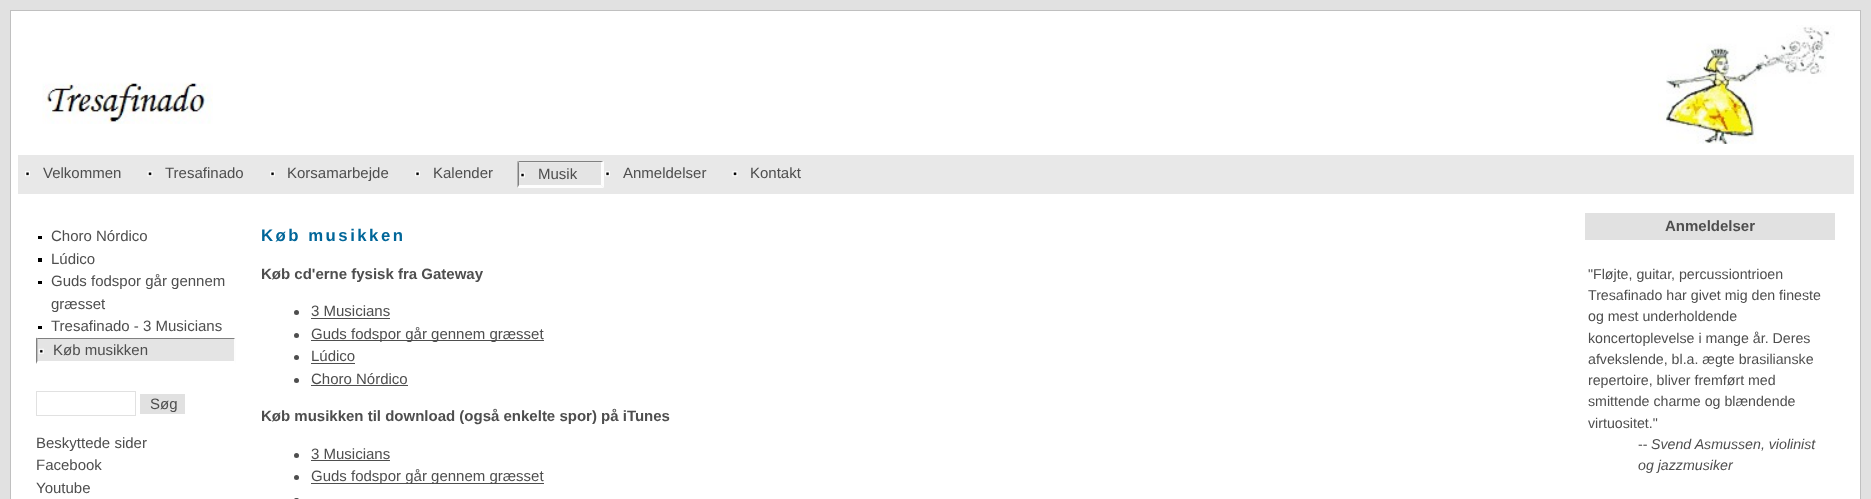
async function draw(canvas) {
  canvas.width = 1871
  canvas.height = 499
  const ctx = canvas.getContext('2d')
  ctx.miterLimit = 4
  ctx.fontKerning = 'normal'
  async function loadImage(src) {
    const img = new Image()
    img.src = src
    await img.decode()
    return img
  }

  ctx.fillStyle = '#e1e1e1'
  ctx.fillRect(0, 0, 1871, 499)
  ctx.fillStyle = '#c0c0c0'
  ctx.fillRect(10, 10, 1851, 1)
  ctx.fillRect(1860, 10, 1, 489)
  ctx.fillRect(10, 10, 1, 489)
  ctx.fillStyle = '#fff'
  ctx.fillRect(11, 11, 1849, 488)
  ctx.drawImage(await loadImage('image0.png'), 42, 82, 171, 42)
  ctx.drawImage(await loadImage('image1.png'), 1658, 25, 177, 119)
  ctx.fillStyle = '#e8e8e8'
  ctx.fillRect(18, 155, 1836, 39)
  ctx.drawImage(await loadImage('image2.png'), 25, 171, 5, 6)
  ctx.font = '15px Liberation Sans'
  ctx.fillStyle = '#4e4e4e'
  ctx.fillText('Velkommen', 43, 178)
  ctx.drawImage(await loadImage('image3.png'), 147, 171, 6, 6)
  ctx.fillText('Tresafinado', 165, 178)
  ctx.drawImage(await loadImage('image2.png'), 270, 171, 5, 6)
  ctx.fillText('Korsamarbejde', 287, 178)
  ctx.drawImage(await loadImage('image2.png'), 415, 171, 5, 6)
  ctx.fillText('Kalender', 433, 178)
  ctx.fillStyle = '#e4e4e4'
  ctx.fillRect(519, 163, 82, 22)
  ctx.drawImage(await loadImage('image4.png'), 520, 172, 5, 6)
  ctx.fillStyle = '#808080'
  ctx.beginPath()
  ctx.moveTo(518, 161)
  ctx.lineTo(604, 161)
  ctx.lineTo(601, 162)
  ctx.lineTo(519, 162)
  ctx.closePath()
  ctx.fill()
  ctx.fillStyle = '#fdfdfd'
  ctx.beginPath()
  ctx.moveTo(604, 161)
  ctx.lineTo(604, 187.5)
  ctx.lineTo(601, 185)
  ctx.lineTo(601, 162.5)
  ctx.closePath()
  ctx.fill()
  ctx.beginPath()
  ctx.moveTo(604, 188)
  ctx.lineTo(518, 188)
  ctx.lineTo(519, 185)
  ctx.lineTo(601, 185)
  ctx.closePath()
  ctx.fill()
  ctx.fillStyle = '#808080'
  ctx.beginPath()
  ctx.moveTo(517.5, 187.5)
  ctx.lineTo(517.5, 161)
  ctx.lineTo(519, 162.5)
  ctx.lineTo(519, 185)
  ctx.closePath()
  ctx.fill()
  ctx.fillStyle = '#4e4e4e'
  ctx.fillText('Musik', 538, 179)
  ctx.drawImage(await loadImage('image2.png'), 605, 171, 5, 6)
  ctx.fillText('Anmeldelser', 623, 178)
  ctx.drawImage(await loadImage('image3.png'), 732, 171, 6, 6)
  ctx.fillText('Kontakt', 750, 178)
  ctx.fillStyle = '#000'
  ctx.fillRect(38, 236, 4, 3)
  ctx.fillStyle = '#4e4e4e'
  ctx.fillText('Choro Nórdico', 51, 241)
  ctx.fillStyle = '#000'
  ctx.fillRect(38, 258, 4, 4)
  ctx.fillStyle = '#4e4e4e'
  ctx.fillText('Lúdico', 51, 264)
  ctx.fillStyle = '#000'
  ctx.fillRect(38, 281, 4, 3)
  ctx.fillStyle = '#4e4e4e'
  ctx.fillText('Guds fodspor går gennem', 51, 286)
  ctx.fillText('græsset', 51, 309)
  ctx.fillStyle = '#000'
  ctx.fillRect(38, 326, 4, 3)
  ctx.fillStyle = '#4e4e4e'
  ctx.fillText('Tresafinado - 3 Musicians', 51, 331)
  ctx.fillStyle = '#e4e4e4'
  ctx.fillRect(38, 339, 196, 22)
  ctx.drawImage(await loadImage('image5.png'), 38, 348, 6, 6)
  ctx.fillStyle = '#808080'
  ctx.beginPath()
  ctx.moveTo(36, 338)
  ctx.lineTo(236, 338)
  ctx.lineTo(234, 339)
  ctx.lineTo(38, 339)
  ctx.closePath()
  ctx.fill()
  ctx.fillStyle = '#fdfdfd'
  ctx.beginPath()
  ctx.moveTo(236, 337.5)
  ctx.lineTo(236, 364)
  ctx.lineTo(234, 361)
  ctx.lineTo(234, 339)
  ctx.closePath()
  ctx.fill()
  ctx.fillStyle = '#808080'
  ctx.beginPath()
  ctx.moveTo(36, 364)
  ctx.lineTo(36, 337.5)
  ctx.lineTo(37.5, 339)
  ctx.lineTo(37.5, 361)
  ctx.closePath()
  ctx.fill()
  ctx.fillStyle = '#4e4e4e'
  ctx.fillText('Køb musikken', 53, 355)
  ctx.strokeStyle = '#e1e1e1'
  ctx.strokeRect(36.5, 391.5, 99, 24)
  ctx.fillStyle = '#e1e1e1'
  ctx.fillRect(140, 394, 45, 20)
  ctx.fillStyle = '#4e4e4e'
  ctx.fillText('Søg', 150, 409)
  ctx.fillText('Beskyttede sider', 36, 448)
  ctx.fillText('Facebook', 36, 470)
  ctx.fillText('Youtube', 36, 493)
  ctx.letterSpacing = '2.5px'
  ctx.font = 'bold 16.75px Liberation Sans'
  ctx.fillStyle = '#069'
  ctx.fillText('Køb musikken', 261, 241)
  ctx.letterSpacing = '0px'
  ctx.font = 'bold 15px Liberation Sans'
  ctx.fillStyle = '#4e4e4e'
  ctx.fillText('Køb cd\'erne fysisk fra Gateway', 261, 279)
  ctx.beginPath()
  ctx.arc(296.5, 312.5, 2.5, 0, 2 * Math.PI)
  ctx.fill()
  ctx.font = '15px Liberation Sans'
  ctx.fillText('3 Musicians', 311, 316)
  ctx.fillRect(311, 318, 79, 1)
  ctx.beginPath()
  ctx.arc(296.5, 335.5, 2.5, 0, 2 * Math.PI)
  ctx.fill()
  ctx.fillRect(311, 340, 233, 1)
  ctx.fillText('Guds fodspor går gennem græsset', 311, 339)
  ctx.beginPath()
  ctx.arc(296.5, 357.5, 2.5, 0, 2 * Math.PI)
  ctx.fill()
  ctx.fillText('Lúdico', 311, 361)
  ctx.fillRect(311, 363, 44, 1)
  ctx.beginPath()
  ctx.arc(296.5, 380.5, 2.5, 0, 2 * Math.PI)
  ctx.fill()
  ctx.fillText('Choro Nórdico', 311, 384)
  ctx.fillRect(311, 385, 97, 1)
  ctx.font = 'bold 15px Liberation Sans'
  ctx.fillText('Køb musikken til download (også enkelte spor) på iTunes', 261, 421)
  ctx.beginPath()
  ctx.arc(296.5, 455.5, 2.5, 0, 2 * Math.PI)
  ctx.fill()
  ctx.font = '15px Liberation Sans'
  ctx.fillText('3 Musicians', 311, 459)
  ctx.fillRect(311, 460, 79, 1)
  ctx.beginPath()
  ctx.arc(296.5, 477.5, 2.5, 0, 2 * Math.PI)
  ctx.fill()
  ctx.fillRect(311, 483, 233, 1)
  ctx.fillText('Guds fodspor går gennem græsset', 311, 481)
  ctx.beginPath()
  ctx.roundRect(294, 498, 5, 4, 2.5)
  ctx.fill()
  ctx.fillStyle = '#e1e1e1'
  ctx.fillRect(1585, 213, 250, 27)
  ctx.font = 'bold 15px Liberation Sans'
  ctx.fillStyle = '#4e4e4e'
  ctx.fillText('Anmeldelser', 1665, 231)
  ctx.font = '14.2px Liberation Sans'
  ctx.fillText('"Fløjte, guitar, percussiontrioen', 1588, 279)
  ctx.fillText('Tresafinado har givet mig den fineste', 1588, 300)
  ctx.fillText('og mest underholdende', 1588, 321)
  ctx.fillText('koncertoplevelse i mange år. Deres', 1588, 343)
  ctx.fillText('afvekslende, bl.a. ægte brasilianske', 1588, 364)
  ctx.fillText('repertoire, bliver fremført med', 1588, 385)
  ctx.fillText('smittende charme og blændende', 1588, 406)
  ctx.fillText('virtuositet."', 1588, 428)
  ctx.fillText('--', 1638, 449)
  ctx.font = 'italic 14.2px Liberation Sans'
  ctx.fillText('Svend Asmussen, violinist', 1651, 449)
  ctx.fillText('og jazzmusiker', 1638, 470)
}

draw(document.querySelector('canvas'))
